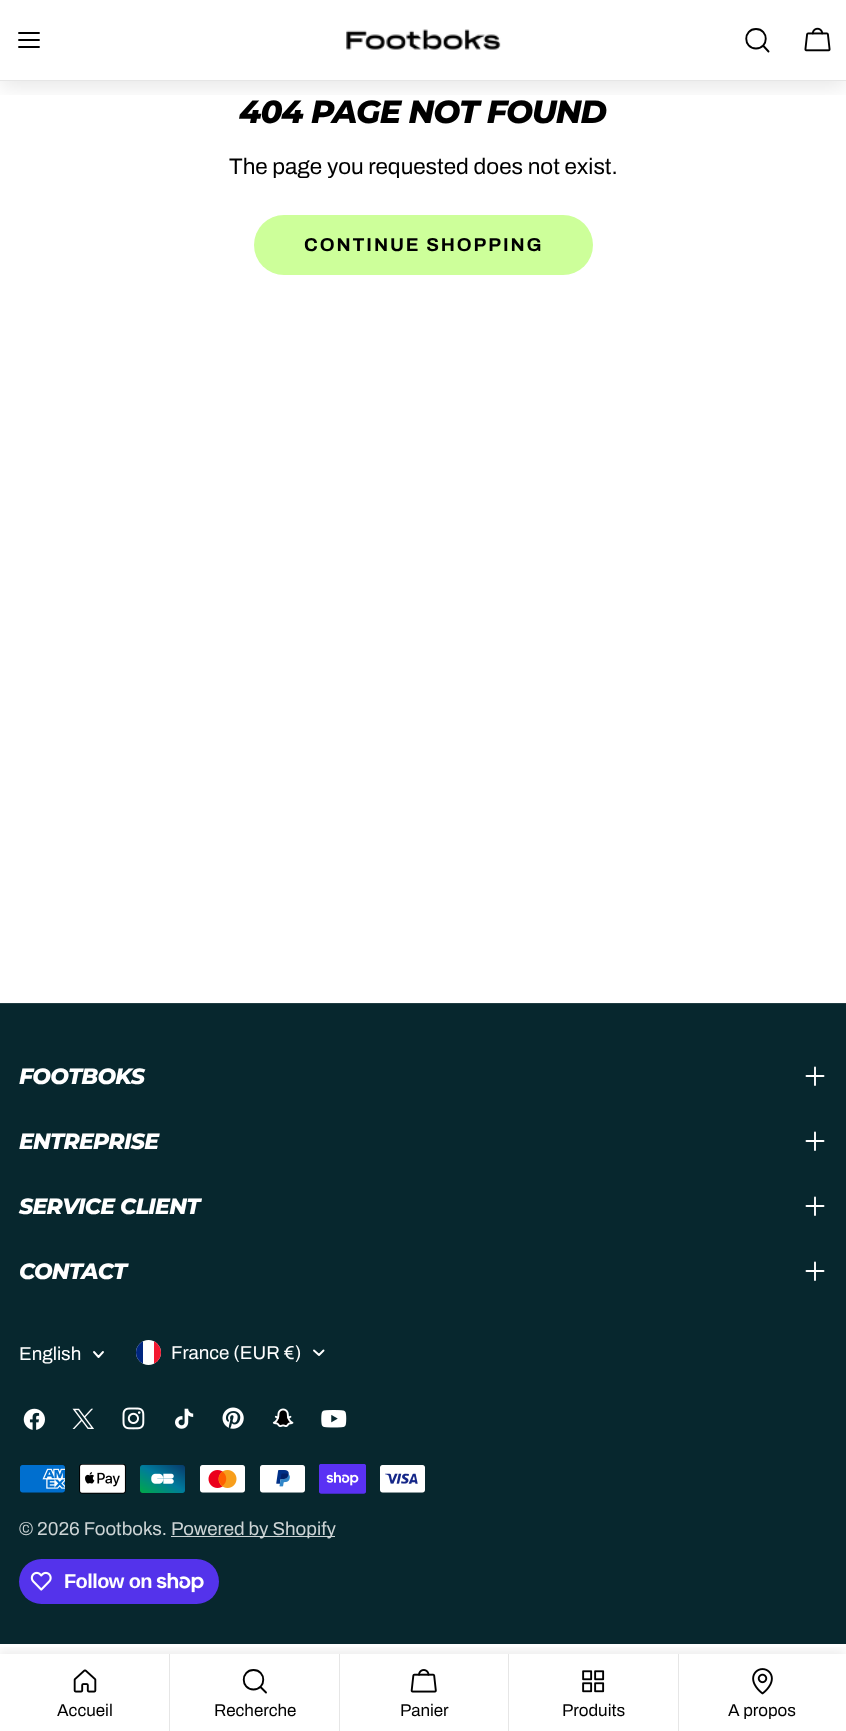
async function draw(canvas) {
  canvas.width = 846
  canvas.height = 1731
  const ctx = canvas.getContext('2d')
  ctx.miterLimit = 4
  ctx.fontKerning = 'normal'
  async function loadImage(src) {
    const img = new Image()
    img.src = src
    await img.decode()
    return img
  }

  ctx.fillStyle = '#fff'
  ctx.fillRect(0, 0, 846, 1731)
  ctx.save()
  ctx.beginPath()
  ctx.rect(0, 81, 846, 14)
  ctx.clip()
  ctx.fillStyle = '#0000001a'
  ctx.filter = 'blur(11px)'
  ctx.beginPath()
  ctx.rect(0, 5, 846, 81)
  ctx.fill()
  ctx.filter = 'none'
  ctx.restore()
  ctx.fillStyle = '#e6e6e6'
  ctx.fillRect(0, 80, 846, 1)
  ctx.beginPath()
  ctx.moveTo(19, 40)
  ctx.lineTo(39, 40)
  ctx.moveTo(19, 33)
  ctx.lineTo(39, 33)
  ctx.moveTo(19, 47)
  ctx.lineTo(39, 47)
  ctx.strokeStyle = '#000'
  ctx.lineWidth = 1.9
  ctx.lineCap = 'round'
  ctx.lineJoin = 'round'
  ctx.stroke()
  ctx.drawImage(await loadImage('image0.png'), 346, 29, 155, 21)
  ctx.beginPath()
  ctx.moveTo(756, 48.5)
  ctx.bezierCurveTo(769, 48.5, 769, 29, 756, 29)
  ctx.bezierCurveTo(743, 29, 743, 48.5, 756, 48.5)
  ctx.closePath()
  ctx.moveTo(763, 45.5)
  ctx.lineTo(768.5, 51.5)
  ctx.stroke()
  ctx.drawImage(await loadImage('image1.png'), 804, 27, 27, 25)
  ctx.letterSpacing = '-1px'
  ctx.font = 'italic 800 32px Montserrat'
  ctx.fillStyle = '#000'
  ctx.fillText('404 PAGE NOT FOUND', 239, 123)
  ctx.letterSpacing = '0px'
  ctx.font = '22.5px Archivo'
  ctx.fillText('The page you requested does not exist.', 229, 174)
  ctx.fillStyle = '#cdff9a'
  ctx.beginPath()
  ctx.roundRect(254, 215, 339, 60, 30)
  ctx.fill()
  ctx.letterSpacing = '1.9px'
  ctx.font = 'bold 18.75px Archivo'
  ctx.fillStyle = '#000'
  ctx.fillText('CONTINUE SHOPPING', 304, 251)
  ctx.fillStyle = '#07272e'
  ctx.fillRect(0, 1004, 846, 640)
  ctx.fillStyle = '#203d43'
  ctx.fillRect(0, 1003, 846, 1)
  ctx.letterSpacing = '-0.7px'
  ctx.font = 'italic 800 22px Montserrat'
  ctx.fillStyle = '#fff'
  ctx.fillText('FOOTBOKS', 19, 1084)
  ctx.beginPath()
  ctx.moveTo(806.5, 1076)
  ctx.lineTo(823.5, 1076)
  ctx.moveTo(815, 1067.5)
  ctx.lineTo(815, 1085)
  ctx.strokeStyle = '#fff'
  ctx.stroke()
  ctx.fillText('ENTREPRISE', 19, 1149)
  ctx.beginPath()
  ctx.moveTo(806.5, 1141)
  ctx.lineTo(823.5, 1141)
  ctx.moveTo(815, 1132.5)
  ctx.lineTo(815, 1150)
  ctx.stroke()
  ctx.fillText('SERVICE CLIENT', 19, 1214)
  ctx.beginPath()
  ctx.moveTo(806.5, 1206)
  ctx.lineTo(823.5, 1206)
  ctx.moveTo(815, 1197.5)
  ctx.lineTo(815, 1215)
  ctx.stroke()
  ctx.fillText('CONTACT', 19, 1279)
  ctx.beginPath()
  ctx.moveTo(806.5, 1271)
  ctx.lineTo(823.5, 1271)
  ctx.moveTo(815, 1262.5)
  ctx.lineTo(815, 1280)
  ctx.stroke()
  ctx.letterSpacing = '0px'
  ctx.font = '18.75px Archivo'
  ctx.fillText('English', 19, 1360)
  ctx.beginPath()
  ctx.moveTo(103, 1352)
  ctx.lineTo(98.5, 1357)
  ctx.lineTo(94, 1352)
  ctx.stroke()
  ctx.beginPath()
  ctx.arc(148.5, 1352.5, 12.5, 0, 2 * Math.PI)
  ctx.fill()
  ctx.save()
  ctx.beginPath()
  ctx.roundRect(136, 1340, 25, 25, 12.5)
  ctx.clip()
  ctx.fillStyle = '#00267f'
  ctx.fillRect(136, 1340, 7, 25)
  ctx.fillStyle = '#f31830'
  ctx.fillRect(154, 1340, 7, 25)
  ctx.restore()
  ctx.fillText('France (EUR €)', 171, 1359)
  ctx.beginPath()
  ctx.moveTo(323.5, 1350.5)
  ctx.lineTo(319, 1355)
  ctx.lineTo(314, 1350.5)
  ctx.stroke()
  ctx.drawImage(await loadImage('image2.png'), 23, 1408, 22, 22)
  ctx.drawImage(await loadImage('image3.png'), 72, 1408, 22, 21)
  ctx.drawImage(await loadImage('image4.png'), 122, 1407, 23, 23)
  ctx.drawImage(await loadImage('image5.png'), 175, 1408, 19, 21)
  ctx.drawImage(await loadImage('image6.png'), 222, 1407, 22, 22)
  ctx.drawImage(await loadImage('image7.png'), 272, 1408, 22, 19)
  ctx.drawImage(await loadImage('image8.png'), 321, 1410, 26, 18)
  ctx.drawImage(await loadImage('image9.png'), 20, 1465, 45, 28)
  ctx.drawImage(await loadImage('image10.png'), 79, 1464, 47, 30)
  ctx.drawImage(await loadImage('image11.png'), 140, 1465, 45, 28)
  ctx.drawImage(await loadImage('image12.png'), 200, 1465, 45, 28)
  ctx.drawImage(await loadImage('image13.png'), 260, 1465, 45, 28)
  ctx.drawImage(await loadImage('image14.png'), 319, 1464, 47, 30)
  ctx.drawImage(await loadImage('image15.png'), 380, 1465, 45, 28)
  ctx.fillStyle = '#cdd4d5'
  ctx.fillText('© 2026 Footboks.', 19, 1535)
  ctx.fillRect(171, 1536, 164, 1)
  ctx.fillText('Powered by Shopify', 171, 1535)
  ctx.fillStyle = '#5433eb'
  ctx.beginPath()
  ctx.roundRect(19, 1559, 200, 45, 22.5)
  ctx.fill()
  ctx.drawImage(await loadImage('image16.png'), 30, 1571, 22, 20)
  ctx.letterSpacing = '-0.6px'
  ctx.font = 'bold 20px Liberation Sans'
  ctx.fillStyle = '#fff'
  ctx.fillText('Follow on', 64, 1588)
  ctx.drawImage(await loadImage('image17.png'), 156, 1573, 48, 20)
  ctx.save()
  ctx.beginPath()
  ctx.rect(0, 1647, 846, 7)
  ctx.clip()
  ctx.fillStyle = '#00000014'
  ctx.filter = 'blur(6px)'
  ctx.beginPath()
  ctx.rect(-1, 1651, 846, 78)
  ctx.fill()
  ctx.filter = 'none'
  ctx.restore()
  ctx.drawImage(await loadImage('image18.png'), 73, 1669, 24, 24)
  ctx.letterSpacing = '0px'
  ctx.font = '17px Archivo'
  ctx.fillStyle = '#000'
  ctx.fillText('Accueil', 57, 1716)
  ctx.fillStyle = '#e6e6e6'
  ctx.fillRect(169, 1654, 1, 77)
  ctx.beginPath()
  ctx.moveTo(253.5, 1689.5)
  ctx.bezierCurveTo(266.5, 1689.5, 266.5, 1670, 253.5, 1670)
  ctx.bezierCurveTo(240.5, 1670, 240.5, 1689.5, 253.5, 1689.5)
  ctx.closePath()
  ctx.moveTo(260.5, 1687)
  ctx.lineTo(266, 1692.5)
  ctx.strokeStyle = '#000'
  ctx.stroke()
  ctx.fillStyle = '#000'
  ctx.fillText('Recherche', 214, 1716)
  ctx.fillStyle = '#e6e6e6'
  ctx.fillRect(339, 1654, 1, 77)
  ctx.drawImage(await loadImage('image19.png'), 410, 1669, 27, 24)
  ctx.fillStyle = '#000'
  ctx.fillText('Panier', 400, 1716)
  ctx.fillStyle = '#e6e6e6'
  ctx.fillRect(508, 1654, 1, 77)
  ctx.drawImage(await loadImage('image20.png'), 582, 1670, 23, 23)
  ctx.fillStyle = '#000'
  ctx.fillText('Produits', 562, 1716)
  ctx.fillStyle = '#e6e6e6'
  ctx.fillRect(678, 1654, 1, 77)
  ctx.drawImage(await loadImage('image21.png'), 752, 1668, 21, 27)
  ctx.fillStyle = '#000'
  ctx.fillText('A propos', 728, 1716)
}

draw(document.querySelector('canvas'))
